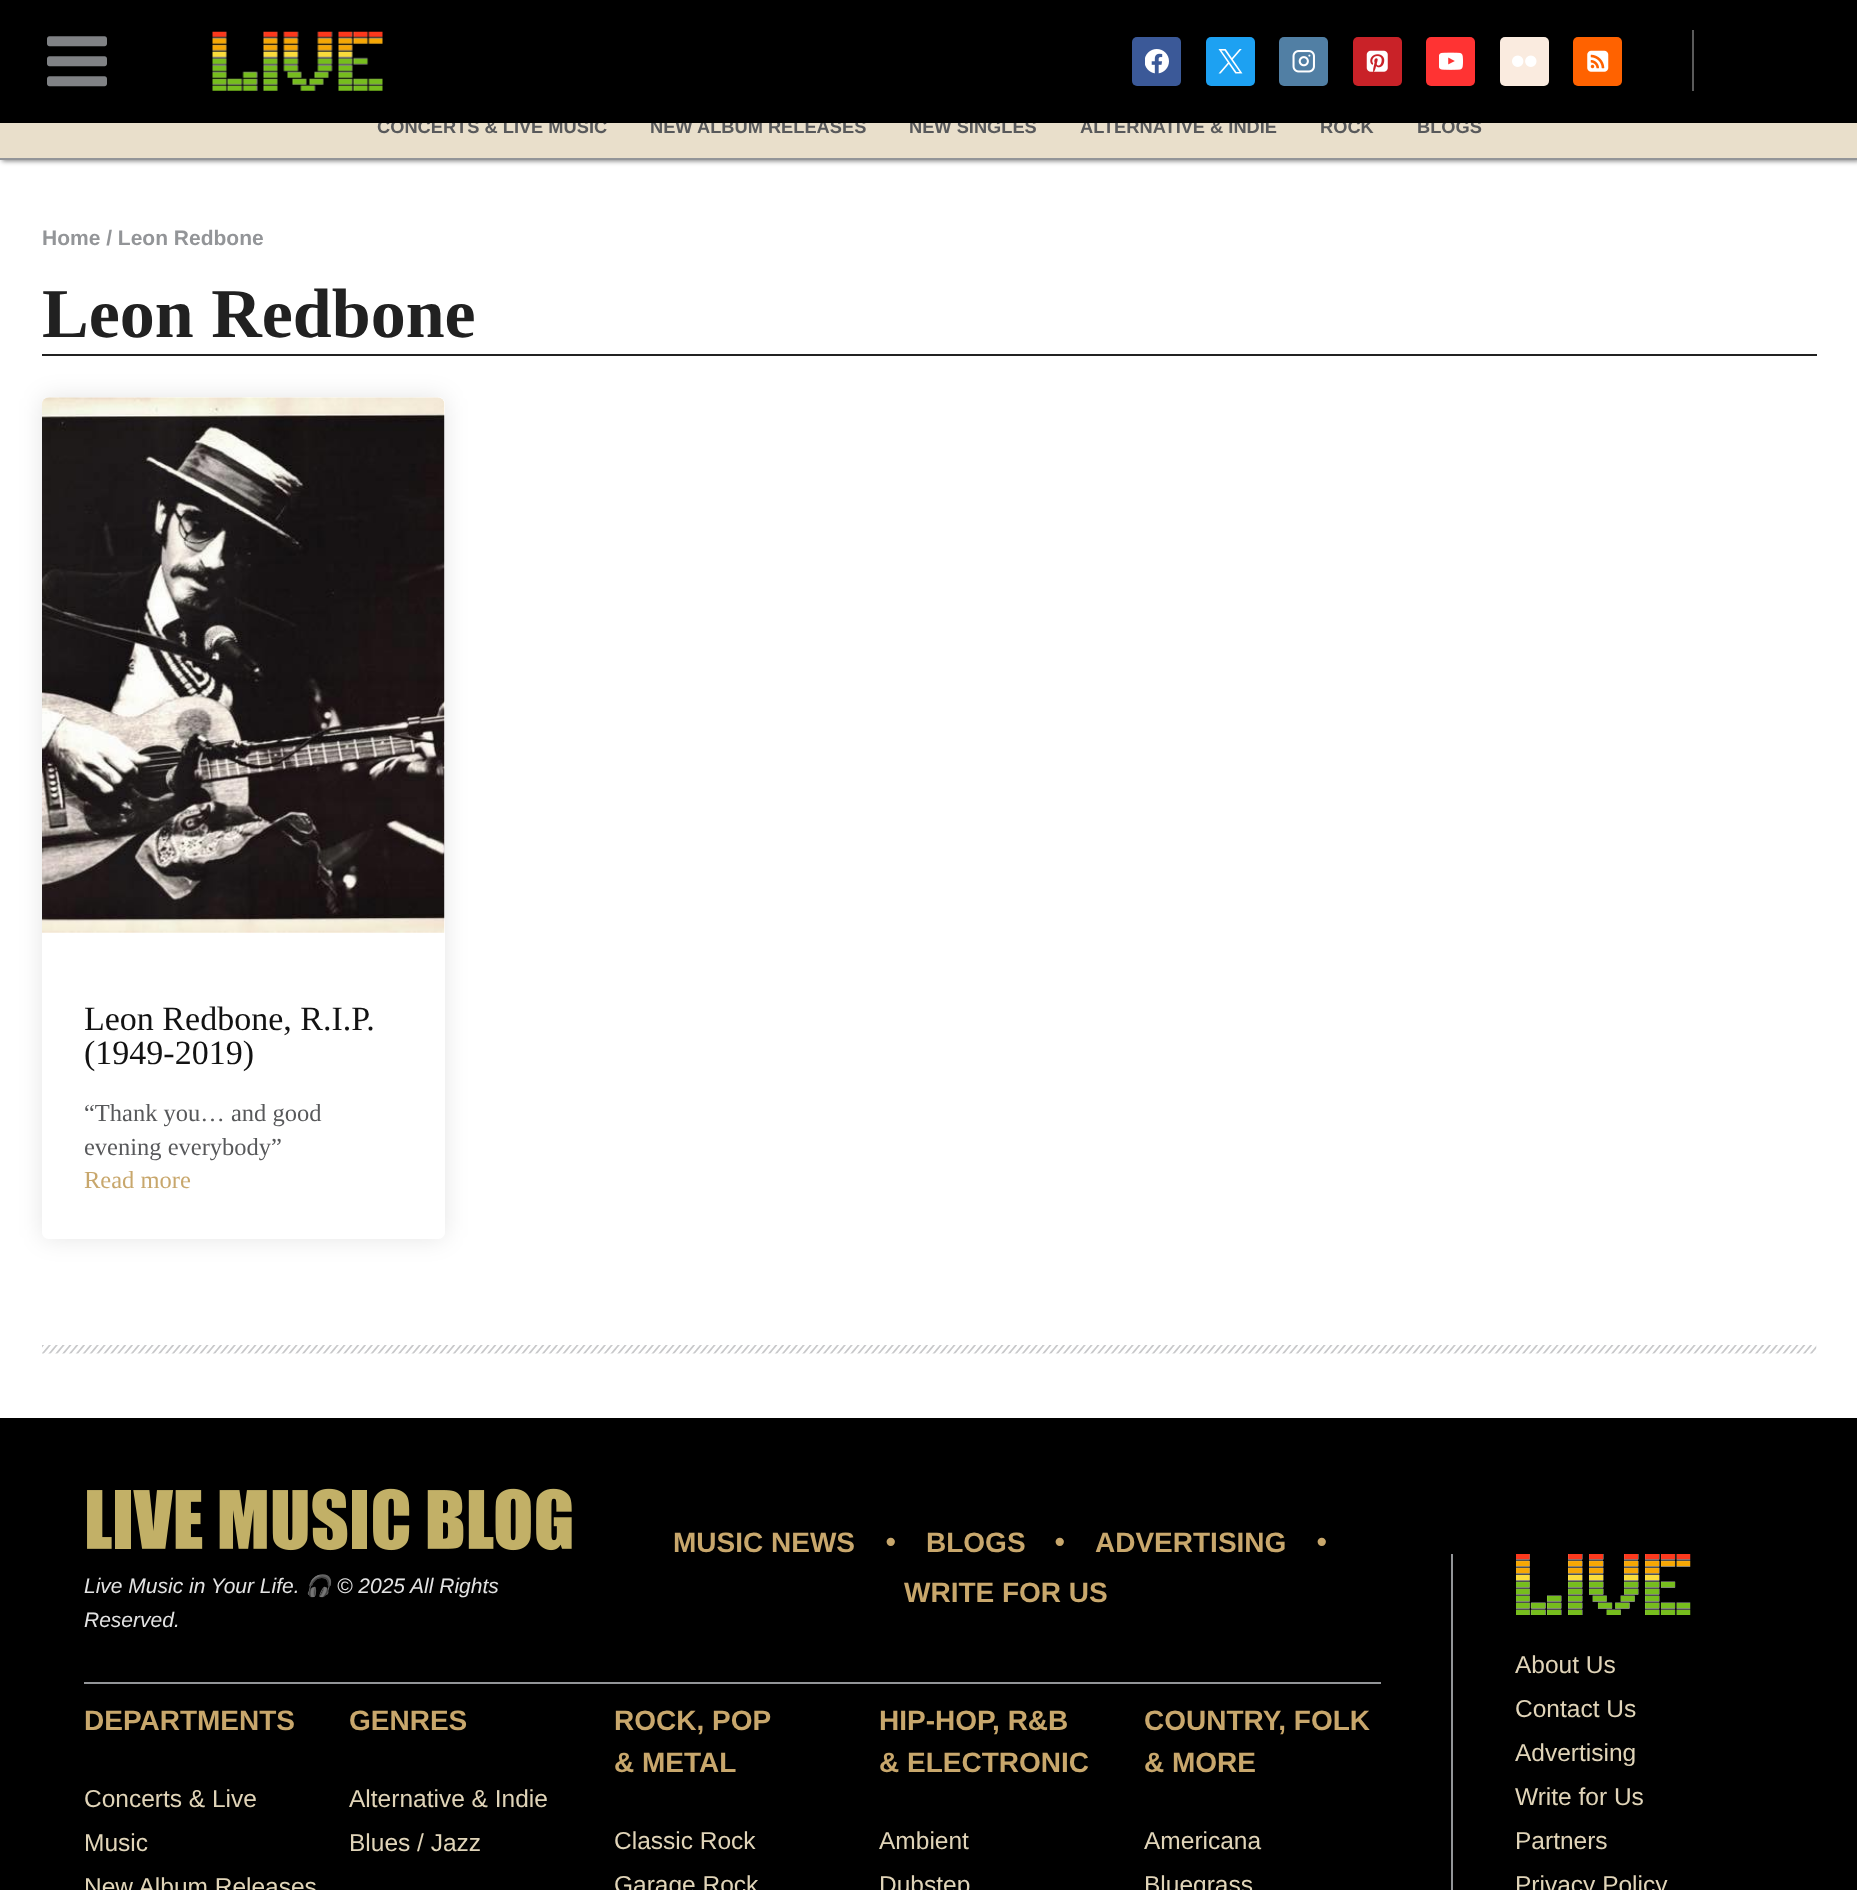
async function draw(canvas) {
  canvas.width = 1857
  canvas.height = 1890
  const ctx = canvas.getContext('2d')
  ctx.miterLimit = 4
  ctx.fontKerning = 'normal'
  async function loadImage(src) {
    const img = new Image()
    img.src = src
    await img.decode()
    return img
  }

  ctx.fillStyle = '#fff'
  ctx.fillRect(0, 0, 1857, 1890)
  ctx.fillStyle = '#00000080'
  ctx.filter = 'blur(2.5px)'
  ctx.beginPath()
  ctx.rect(2, 96, 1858, 65)
  ctx.fill()
  ctx.filter = 'none'
  ctx.fillStyle = '#e9dfcb'
  ctx.fillRect(0, 123, 1857, 35)
  ctx.font = 'bold 18.25px Liberation Sans'
  ctx.fillStyle = '#58595b'
  ctx.fillText('CONCERTS & LIVE MUSIC', 377, 133)
  ctx.fillText('NEW ALBUM RELEASES', 650, 133)
  ctx.fillText('NEW SINGLES', 909, 133)
  ctx.fillText('ALTERNATIVE & INDIE', 1080, 133)
  ctx.fillText('ROCK', 1320, 133)
  ctx.fillText('BLOGS', 1417, 133)
  ctx.fillStyle = '#000'
  ctx.fillRect(0, 0, 1857, 123)
  ctx.drawImage(await loadImage('image0.png'), 47, 36, 60, 51)
  ctx.drawImage(await loadImage('image1.png'), 212, 31, 171, 60)
  ctx.fillStyle = '#3b5998'
  ctx.beginPath()
  ctx.roundRect(1132, 37, 49, 49, 5)
  ctx.fill()
  ctx.drawImage(await loadImage('image2.png'), 1145, 49, 24, 25)
  ctx.fillStyle = '#1da1f2'
  ctx.beginPath()
  ctx.roundRect(1206, 37, 49, 49, 5)
  ctx.fill()
  ctx.drawImage(await loadImage('image3.png'), 1218, 49, 25, 25)
  ctx.fillStyle = '#517fa4'
  ctx.beginPath()
  ctx.roundRect(1279, 37, 49, 49, 5)
  ctx.fill()
  ctx.drawImage(await loadImage('image4.png'), 1292, 50, 23, 23)
  ctx.fillStyle = '#c92228'
  ctx.beginPath()
  ctx.roundRect(1353, 37, 49, 49, 5)
  ctx.fill()
  ctx.drawImage(await loadImage('image5.png'), 1366, 50, 22, 22)
  ctx.fillStyle = '#f33'
  ctx.beginPath()
  ctx.roundRect(1426, 37, 49, 49, 5)
  ctx.fill()
  ctx.drawImage(await loadImage('image6.png'), 1439, 52, 24, 18)
  ctx.fillStyle = '#faebdf'
  ctx.beginPath()
  ctx.roundRect(1500, 37, 49, 49, 5)
  ctx.fill()
  ctx.drawImage(await loadImage('image7.png'), 1512, 55, 25, 12)
  ctx.fillStyle = '#ff6200'
  ctx.beginPath()
  ctx.roundRect(1573, 37, 49, 49, 5)
  ctx.fill()
  ctx.drawImage(await loadImage('image8.png'), 1587, 50, 22, 22)
  ctx.fillStyle = '#5a5a5a'
  ctx.fillRect(1692, 30, 2, 61)
  ctx.fillStyle = '#939598'
  ctx.fillRect(0, 158, 1857, 2)
  ctx.font = 'bold 21px Liberation Sans'
  ctx.fillText('Home / Leon Redbone', 42, 245)
  ctx.fillStyle = '#212121'
  ctx.fillRect(42, 354, 1775, 2)
  ctx.font = 'bold 70px Liberation Serif'
  ctx.fillText('Leon Redbone', 42, 337)
  ctx.save()
  ctx.beginPath()
  ctx.moveTo(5, 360)
  ctx.lineTo(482, 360)
  ctx.lineTo(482, 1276)
  ctx.lineTo(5, 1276)
  ctx.closePath()
  ctx.moveTo(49, 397)
  ctx.lineTo(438, 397)
  ctx.bezierCurveTo(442, 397, 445, 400, 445, 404)
  ctx.lineTo(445, 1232)
  ctx.bezierCurveTo(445, 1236, 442, 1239, 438, 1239)
  ctx.lineTo(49, 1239)
  ctx.bezierCurveTo(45, 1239, 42, 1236, 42, 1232)
  ctx.lineTo(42, 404)
  ctx.bezierCurveTo(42, 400, 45, 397, 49, 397)
  ctx.closePath()
  ctx.clip('evenodd')
  ctx.fillStyle = '#0000001a'
  ctx.filter = 'blur(12px)'
  ctx.beginPath()
  ctx.roundRect(42, 397, 403, 842, 7)
  ctx.fill()
  ctx.filter = 'none'
  ctx.restore()
  ctx.drawImage(await loadImage('image9.png'), 42, 397, 403, 536)
  ctx.font = '34px Liberation Serif'
  ctx.fillStyle = '#121212'
  ctx.fillText('Leon Redbone, R.I.P.', 84, 1030)
  ctx.fillText('(1949-2019)', 84, 1064)
  ctx.font = '24.5px Liberation Serif'
  ctx.fillStyle = '#58595b'
  ctx.fillText('“Thank you… and good', 84, 1121)
  ctx.fillText('evening everybody”', 84, 1155)
  ctx.fillStyle = '#c8a76c'
  ctx.fillText('Read more', 84, 1188)
  ctx.drawImage(await loadImage('image10.png'), 42, 1345, 1775, 9)
  ctx.fillStyle = '#000'
  ctx.fillRect(0, 1418, 1857, 472)
  ctx.drawImage(await loadImage('image11.png'), 87, 1488, 485, 63)
  ctx.font = 'italic 21px Liberation Sans'
  ctx.fillStyle = '#e3e3e3'
  ctx.fillText('Live Music in Your Life.', 84, 1593)
  ctx.font = 'italic 21px Noto Color Emoji'
  ctx.fillText('🎧', 305, 1593)
  ctx.font = 'italic 21px Liberation Sans'
  ctx.fillText('© 2025 All Rights', 337, 1593)
  ctx.fillText('Reserved.', 84, 1627)
  ctx.font = 'bold 28px Liberation Sans'
  ctx.fillStyle = '#c8a76c'
  ctx.fillText('MUSIC NEWS', 673, 1552)
  ctx.font = '70px Liberation Serif'
  ctx.fillText('.', 882, 1545)
  ctx.font = 'bold 28px Liberation Sans'
  ctx.fillText('BLOGS', 926, 1552)
  ctx.font = '70px Liberation Serif'
  ctx.fillText('.', 1051, 1545)
  ctx.font = 'bold 28px Liberation Sans'
  ctx.fillText('ADVERTISING', 1095, 1552)
  ctx.font = '70px Liberation Serif'
  ctx.fillText('.', 1313, 1545)
  ctx.font = 'bold 28px Liberation Sans'
  ctx.fillText('WRITE FOR US', 904, 1602)
  ctx.fillStyle = '#939598'
  ctx.fillRect(84, 1682, 1297, 2)
  ctx.fillStyle = '#c8a76c'
  ctx.fillText('DEPARTMENTS', 84, 1730)
  ctx.font = '24.5px Liberation Sans'
  ctx.fillStyle = '#e0d4b8'
  ctx.fillText('Concerts & Live', 84, 1807)
  ctx.fillText('Music', 84, 1851)
  ctx.fillText('New Album Releases', 84, 1895)
  ctx.font = 'bold 28px Liberation Sans'
  ctx.fillStyle = '#c8a76c'
  ctx.fillText('GENRES', 349, 1730)
  ctx.font = '24.5px Liberation Sans'
  ctx.fillStyle = '#e0d4b8'
  ctx.fillText('Alternative & Indie', 349, 1807)
  ctx.fillText('Blues / Jazz', 349, 1851)
  ctx.font = 'bold 28px Liberation Sans'
  ctx.fillStyle = '#c8a76c'
  ctx.fillText('ROCK, POP', 614, 1730)
  ctx.fillText('& METAL', 614, 1772)
  ctx.font = '24.5px Liberation Sans'
  ctx.fillStyle = '#e0d4b8'
  ctx.fillText('Classic Rock', 614, 1849)
  ctx.fillText('Garage Rock', 614, 1893)
  ctx.font = 'bold 28px Liberation Sans'
  ctx.fillStyle = '#c8a76c'
  ctx.fillText('HIP-HOP, R&B', 879, 1730)
  ctx.fillText('& ELECTRONIC', 879, 1772)
  ctx.font = '24.5px Liberation Sans'
  ctx.fillStyle = '#e0d4b8'
  ctx.fillText('Ambient', 879, 1849)
  ctx.fillText('Dubstep', 879, 1893)
  ctx.font = 'bold 28px Liberation Sans'
  ctx.fillStyle = '#c8a76c'
  ctx.fillText('COUNTRY, FOLK', 1144, 1730)
  ctx.fillText('& MORE', 1144, 1772)
  ctx.font = '24.5px Liberation Sans'
  ctx.fillStyle = '#e0d4b8'
  ctx.fillText('Americana', 1144, 1849)
  ctx.fillText('Bluegrass', 1144, 1893)
  ctx.fillStyle = '#939598'
  ctx.fillRect(1451, 1554, 2, 336)
  ctx.drawImage(await loadImage('image12.png'), 1516, 1554, 175, 61)
  ctx.fillStyle = '#e0d4b8'
  ctx.fillText('About Us', 1515, 1673)
  ctx.fillText('Contact Us', 1515, 1717)
  ctx.fillText('Advertising', 1515, 1761)
  ctx.fillText('Write for Us', 1515, 1805)
  ctx.fillText('Partners', 1515, 1849)
  ctx.fillText('Privacy Policy', 1515, 1893)
}

draw(document.querySelector('canvas'))
